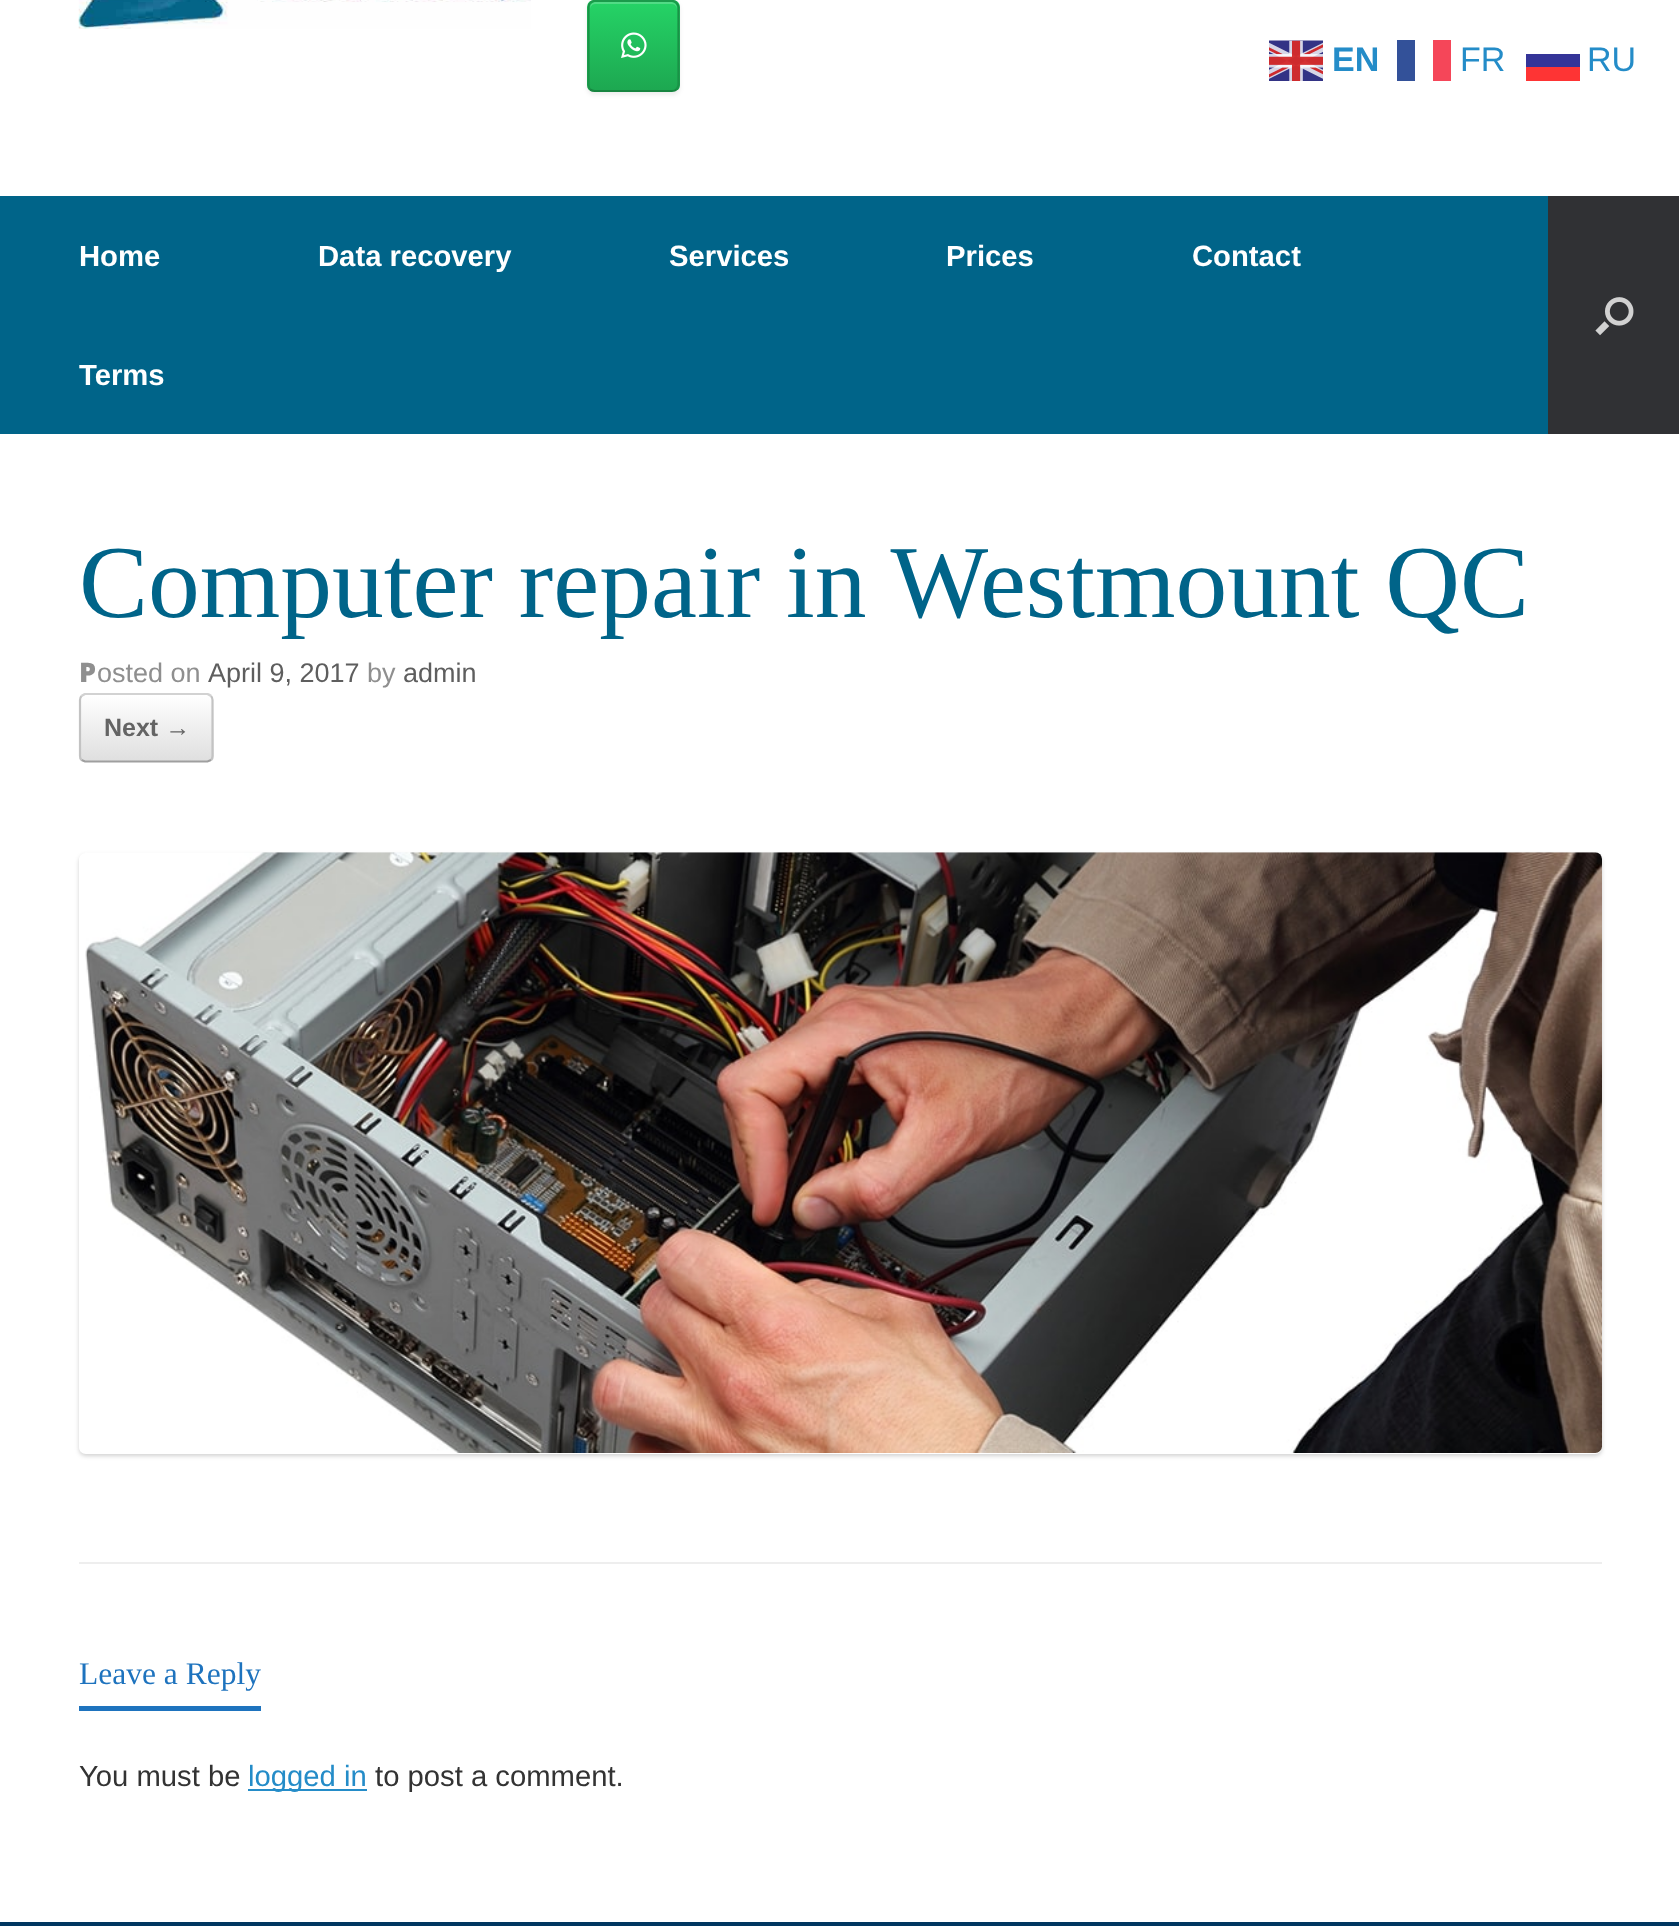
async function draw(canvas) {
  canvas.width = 1679
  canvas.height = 1926
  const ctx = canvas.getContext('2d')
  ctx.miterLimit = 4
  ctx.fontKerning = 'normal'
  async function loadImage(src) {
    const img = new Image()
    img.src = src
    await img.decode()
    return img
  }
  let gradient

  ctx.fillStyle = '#003660'
  ctx.fillRect(0, 0, 1679, 1926)
  ctx.fillStyle = '#fff'
  ctx.fillRect(0, 0, 1679, 196)
  ctx.drawImage(await loadImage('image0.png'), 1269, 40, 54, 41)
  ctx.font = 'bold 34px Liberation Sans'
  ctx.fillStyle = '#248cc8'
  ctx.fillText('EN', 1332, 71)
  ctx.font = '34px Liberation Sans'
  ctx.fillText('FR', 1460, 71)
  ctx.fillStyle = '#335199'
  ctx.fillRect(1397, 40, 18, 41)
  ctx.fillStyle = '#f54659'
  ctx.fillRect(1433, 40, 18, 41)
  ctx.fillStyle = '#248cc8'
  ctx.fillText('RU', 1587, 71)
  ctx.fillStyle = '#343498'
  ctx.fillRect(1526, 54, 54, 13)
  ctx.fillStyle = '#fe3434'
  ctx.fillRect(1526, 67, 54, 14)
  ctx.drawImage(await loadImage('image1.png'), 78, 0, 453, 29)
  ctx.fillStyle = '#00000012'
  ctx.filter = 'blur(2px)'
  ctx.beginPath()
  ctx.roundRect(587, 2, 93, 93, 7)
  ctx.fill()
  ctx.filter = 'none'
  ctx.save()
  ctx.beginPath()
  ctx.roundRect(587, 0, 93, 92, 7)
  ctx.clip()
  gradient = ctx.createLinearGradient(590, 2.2, 590, -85)
  gradient.addColorStop(0, '#1da851')
  gradient.addColorStop(1, '#25d366')
  ctx.fillStyle = gradient
  ctx.fillRect(587, 0, 93, 2)
  gradient = ctx.createLinearGradient(590, 90, 590, 2.2)
  gradient.addColorStop(0, '#1da851')
  gradient.addColorStop(1, '#25d366')
  ctx.fillStyle = gradient
  ctx.fillRect(587, 2, 93, 88)
  ctx.restore()
  ctx.fillStyle = '#51db85'
  ctx.beginPath()
  ctx.moveTo(595, 4)
  ctx.lineTo(672, 4)
  ctx.bezierCurveTo(675, 4, 677, 7, 677, 10)
  ctx.bezierCurveTo(677, -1, 670, 2, 659, 2)
  ctx.lineTo(608, 2)
  ctx.bezierCurveTo(597, 2, 590, -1, 590, 10)
  ctx.bezierCurveTo(590, 7, 592, 4, 595, 4)
  ctx.closePath()
  ctx.fill()
  ctx.beginPath()
  ctx.moveTo(590, 3)
  ctx.bezierCurveTo(591.5, 2, 593, 1, 594.5, 1)
  ctx.lineTo(672, 1)
  ctx.bezierCurveTo(674, 1, 675.5, 2, 676.5, 3)
  ctx.strokeStyle = '#1b9b4b'
  ctx.lineWidth = 2.2
  ctx.stroke()
  ctx.beginPath()
  ctx.moveTo(676.5, 3)
  ctx.bezierCurveTo(677.5, 4, 678.5, 5.5, 678.5, 7.5)
  ctx.lineTo(678.5, 85)
  ctx.bezierCurveTo(678.5, 86.5, 677.5, 88, 676.5, 89.5)
  ctx.strokeStyle = '#1a9247'
  ctx.stroke()
  ctx.beginPath()
  ctx.moveTo(676.5, 89.5)
  ctx.bezierCurveTo(675.5, 90.5, 674, 91, 672, 91)
  ctx.lineTo(594.5, 91)
  ctx.bezierCurveTo(593, 91, 591.5, 90.5, 590, 89.5)
  ctx.strokeStyle = '#178540'
  ctx.stroke()
  ctx.beginPath()
  ctx.moveTo(590, 89.5)
  ctx.bezierCurveTo(589, 88, 588.5, 86.5, 588.5, 85)
  ctx.lineTo(588.5, 7.5)
  ctx.bezierCurveTo(588.5, 5.5, 589, 4, 590, 3)
  ctx.strokeStyle = '#1a9247'
  ctx.stroke()
  ctx.drawImage(await loadImage('image2.png'), 621, 32, 26, 26)
  ctx.fillStyle = '#006489'
  ctx.fillRect(0, 196, 1548, 238)
  ctx.font = 'bold 29.25px Liberation Sans'
  ctx.fillStyle = '#fff'
  ctx.fillText('Home', 79, 266)
  ctx.fillText('Data recovery', 318, 266)
  ctx.fillText('Services', 669, 266)
  ctx.fillText('Prices', 946, 266)
  ctx.fillText('Contact', 1192, 266)
  ctx.fillText('Terms', 79, 385)
  ctx.fillStyle = '#303134'
  ctx.fillRect(1548, 196, 131, 238)
  ctx.drawImage(await loadImage('image3.png'), 1595, 297, 39, 39)
  ctx.fillStyle = '#fff'
  ctx.fillRect(0, 434, 1679, 1488)
  ctx.fillStyle = '#eee'
  ctx.fillRect(79, 1562, 1523, 2)
  ctx.font = '103.5px Liberation Serif'
  ctx.fillStyle = '#006489'
  ctx.fillText('Computer repair in Westmount QC', 79, 617)
  ctx.font = '900 27px Noto Sans'
  ctx.fillStyle = '#8f8f8f'
  ctx.fillText('P', 79, 682)
  ctx.font = '27px Liberation Sans'
  ctx.fillText('osted on', 97, 682)
  ctx.fillStyle = '#5e5e5e'
  ctx.fillText('April 9, 2017', 208, 682)
  ctx.fillStyle = '#8f8f8f'
  ctx.fillText('by', 367, 682)
  ctx.fillStyle = '#5e5e5e'
  ctx.fillText('admin', 403, 682)
  ctx.save()
  ctx.beginPath()
  ctx.roundRect(79, 693, 135, 70, 7)
  ctx.clip()
  gradient = ctx.createLinearGradient(81, 695, 81, 630)
  gradient.addColorStop(0, '#dfdfdf')
  gradient.addColorStop(1, '#fff')
  ctx.fillStyle = gradient
  ctx.fillRect(79, 693, 135, 2)
  gradient = ctx.createLinearGradient(81, 761, 81, 695)
  gradient.addColorStop(0, '#dfdfdf')
  gradient.addColorStop(1, '#fff')
  ctx.fillStyle = gradient
  ctx.fillRect(79, 695, 135, 66)
  ctx.restore()
  ctx.beginPath()
  ctx.moveTo(81.5, 696)
  ctx.lineTo(85, 694)
  ctx.lineTo(207.5, 694)
  ctx.lineTo(211, 696)
  ctx.strokeStyle = '#d2d2d2'
  ctx.stroke()
  ctx.beginPath()
  ctx.moveTo(211, 696)
  ctx.bezierCurveTo(212, 697, 212.5, 698.5, 212.5, 700)
  ctx.lineTo(212.5, 756)
  ctx.bezierCurveTo(212.5, 757.5, 212, 759, 211, 760)
  ctx.strokeStyle = '#c3c3c3'
  ctx.stroke()
  ctx.beginPath()
  ctx.moveTo(211, 760)
  ctx.lineTo(207.5, 761.5)
  ctx.lineTo(85, 761.5)
  ctx.lineTo(81.5, 760)
  ctx.strokeStyle = '#9f9f9f'
  ctx.stroke()
  ctx.beginPath()
  ctx.moveTo(81.5, 760)
  ctx.bezierCurveTo(80.5, 759, 80, 757.5, 80, 756)
  ctx.lineTo(80, 700)
  ctx.bezierCurveTo(80, 698.5, 80.5, 697, 81.5, 696)
  ctx.strokeStyle = '#c3c3c3'
  ctx.stroke()
  ctx.font = 'bold 25px Liberation Sans'
  ctx.fillStyle = '#646464'
  ctx.fillText('Next →', 104, 736)
  ctx.save()
  ctx.beginPath()
  ctx.moveTo(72, 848)
  ctx.lineTo(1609, 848)
  ctx.lineTo(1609, 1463)
  ctx.lineTo(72, 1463)
  ctx.closePath()
  ctx.moveTo(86, 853)
  ctx.lineTo(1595, 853)
  ctx.bezierCurveTo(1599, 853, 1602, 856, 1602, 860)
  ctx.lineTo(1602, 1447)
  ctx.bezierCurveTo(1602, 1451, 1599, 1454, 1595, 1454)
  ctx.lineTo(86, 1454)
  ctx.bezierCurveTo(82, 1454, 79, 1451, 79, 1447)
  ctx.lineTo(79, 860)
  ctx.bezierCurveTo(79, 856, 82, 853, 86, 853)
  ctx.closePath()
  ctx.clip('evenodd')
  ctx.fillStyle = '#0000002e'
  ctx.filter = 'blur(2px)'
  ctx.beginPath()
  ctx.roundRect(79, 855, 1523, 601, 7)
  ctx.fill()
  ctx.filter = 'none'
  ctx.restore()
  ctx.drawImage(await loadImage('image4.png'), 85, 852, 1517, 601)
  ctx.fillStyle = '#1e73be'
  ctx.fillRect(79, 1706, 182, 5)
  ctx.font = '31.5px Liberation Serif'
  ctx.fillText('Leave a Reply', 79, 1684)
  ctx.font = '29.25px Liberation Sans'
  ctx.fillStyle = '#333'
  ctx.fillText('You must be', 79, 1786)
  ctx.fillStyle = '#248cc8'
  ctx.fillRect(248, 1789, 119, 2)
  ctx.fillText('logged in', 248, 1786)
  ctx.fillStyle = '#333'
  ctx.fillText('to post a comment.', 375, 1786)
}

draw(document.querySelector('canvas'))
